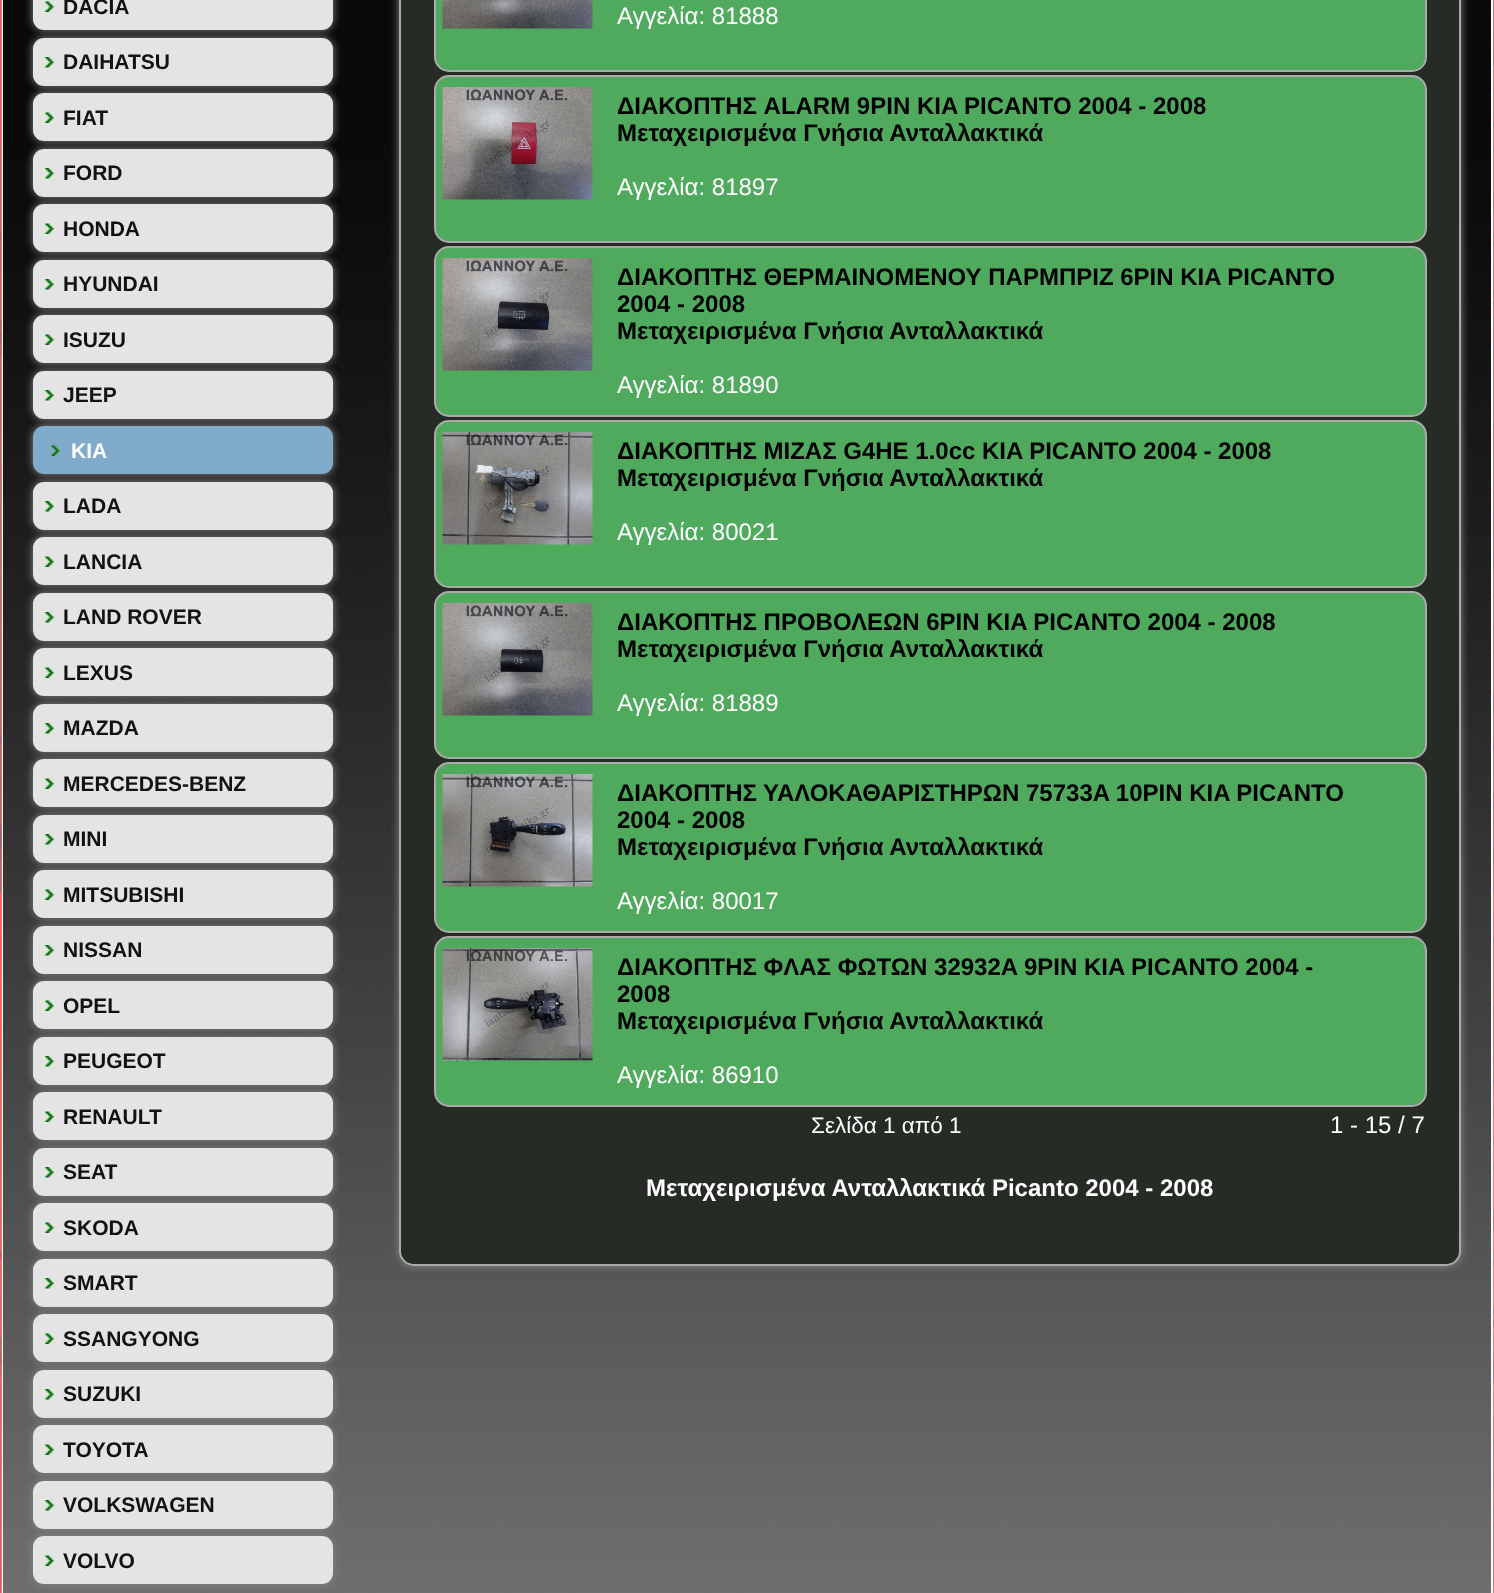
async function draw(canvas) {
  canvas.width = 1494
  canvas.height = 1593
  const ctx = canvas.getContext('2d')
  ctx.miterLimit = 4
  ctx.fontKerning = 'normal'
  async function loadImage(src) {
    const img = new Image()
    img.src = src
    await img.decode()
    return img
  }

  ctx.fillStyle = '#fff'
  ctx.fillRect(0, 0, 1494, 1593)
  ctx.drawImage(await loadImage('image0.png'), 0, 0, 1494, 1593)
  ctx.filter = 'blur(4px)'
  ctx.beginPath()
  ctx.roundRect(2, -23, 1491, 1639, 11)
  ctx.fill()
  ctx.filter = 'none'
  ctx.strokeStyle = '#fff'
  ctx.lineWidth = 2
  ctx.strokeRect(3, -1, 1489, 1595)
  ctx.drawImage(await loadImage('image1.png'), 3, 0, 1488, 1593)
  ctx.fillStyle = '#888'
  ctx.filter = 'blur(4px)'
  ctx.beginPath()
  ctx.roundRect(33, -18, 300, 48, 11)
  ctx.fill()
  ctx.filter = 'none'
  ctx.fillStyle = '#e4e4e4'
  ctx.beginPath()
  ctx.roundRect(33, -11, 300, 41, 11)
  ctx.fill()
  ctx.drawImage(await loadImage('image2.png'), 45, 1, 9, 11)
  ctx.font = 'bold 21px Liberation Sans'
  ctx.fillStyle = '#131212'
  ctx.fillText('DACIA', 63, 14)
  ctx.fillStyle = '#888'
  ctx.filter = 'blur(4px)'
  ctx.beginPath()
  ctx.roundRect(33, 38, 300, 48, 11)
  ctx.fill()
  ctx.filter = 'none'
  ctx.fillStyle = '#e4e4e4'
  ctx.beginPath()
  ctx.roundRect(33, 38, 300, 48, 11)
  ctx.fill()
  ctx.drawImage(await loadImage('image3.png'), 45, 57, 9, 11)
  ctx.fillStyle = '#131212'
  ctx.fillText('DAIHATSU', 63, 69)
  ctx.fillStyle = '#888'
  ctx.filter = 'blur(4px)'
  ctx.beginPath()
  ctx.roundRect(33, 93, 300, 48, 11)
  ctx.fill()
  ctx.filter = 'none'
  ctx.fillStyle = '#e4e4e4'
  ctx.beginPath()
  ctx.roundRect(33, 93, 300, 48, 11)
  ctx.fill()
  ctx.drawImage(await loadImage('image2.png'), 45, 112, 9, 11)
  ctx.fillStyle = '#131212'
  ctx.fillText('FIAT', 63, 125)
  ctx.fillStyle = '#888'
  ctx.filter = 'blur(4px)'
  ctx.beginPath()
  ctx.roundRect(33, 149, 300, 48, 11)
  ctx.fill()
  ctx.filter = 'none'
  ctx.fillStyle = '#e4e4e4'
  ctx.beginPath()
  ctx.roundRect(33, 149, 300, 48, 11)
  ctx.fill()
  ctx.drawImage(await loadImage('image3.png'), 45, 168, 9, 11)
  ctx.fillStyle = '#131212'
  ctx.fillText('FORD', 63, 180)
  ctx.fillStyle = '#888'
  ctx.filter = 'blur(4px)'
  ctx.beginPath()
  ctx.roundRect(33, 204, 300, 48, 11)
  ctx.fill()
  ctx.filter = 'none'
  ctx.fillStyle = '#e4e4e4'
  ctx.beginPath()
  ctx.roundRect(33, 204, 300, 48, 11)
  ctx.fill()
  ctx.drawImage(await loadImage('image2.png'), 45, 223, 9, 11)
  ctx.fillStyle = '#131212'
  ctx.fillText('HONDA', 63, 236)
  ctx.fillStyle = '#888'
  ctx.filter = 'blur(4px)'
  ctx.beginPath()
  ctx.roundRect(33, 260, 300, 48, 11)
  ctx.fill()
  ctx.filter = 'none'
  ctx.fillStyle = '#e4e4e4'
  ctx.beginPath()
  ctx.roundRect(33, 260, 300, 48, 11)
  ctx.fill()
  ctx.drawImage(await loadImage('image3.png'), 45, 279, 9, 11)
  ctx.fillStyle = '#131212'
  ctx.fillText('HYUNDAI', 63, 291)
  ctx.fillStyle = '#888'
  ctx.filter = 'blur(4px)'
  ctx.beginPath()
  ctx.roundRect(33, 315, 300, 48, 11)
  ctx.fill()
  ctx.filter = 'none'
  ctx.fillStyle = '#e4e4e4'
  ctx.beginPath()
  ctx.roundRect(33, 315, 300, 48, 11)
  ctx.fill()
  ctx.drawImage(await loadImage('image2.png'), 45, 334, 9, 11)
  ctx.fillStyle = '#131212'
  ctx.fillText('ISUZU', 63, 347)
  ctx.fillStyle = '#888'
  ctx.filter = 'blur(4px)'
  ctx.beginPath()
  ctx.roundRect(33, 371, 300, 48, 11)
  ctx.fill()
  ctx.filter = 'none'
  ctx.fillStyle = '#e4e4e4'
  ctx.beginPath()
  ctx.roundRect(33, 371, 300, 48, 11)
  ctx.fill()
  ctx.drawImage(await loadImage('image3.png'), 45, 390, 9, 11)
  ctx.fillStyle = '#131212'
  ctx.fillText('JEEP', 63, 402)
  ctx.fillStyle = '#888'
  ctx.filter = 'blur(4px)'
  ctx.beginPath()
  ctx.roundRect(33, 426, 300, 48, 11)
  ctx.fill()
  ctx.filter = 'none'
  ctx.fillStyle = '#81abca'
  ctx.beginPath()
  ctx.roundRect(33, 426, 300, 48, 11)
  ctx.fill()
  ctx.drawImage(await loadImage('image4.png'), 51, 445, 9, 11)
  ctx.fillStyle = '#fff'
  ctx.fillText('KIA', 71, 458)
  ctx.fillStyle = '#888'
  ctx.filter = 'blur(4px)'
  ctx.beginPath()
  ctx.roundRect(33, 482, 300, 48, 11)
  ctx.fill()
  ctx.filter = 'none'
  ctx.fillStyle = '#e4e4e4'
  ctx.beginPath()
  ctx.roundRect(33, 482, 300, 48, 11)
  ctx.fill()
  ctx.drawImage(await loadImage('image3.png'), 45, 501, 9, 11)
  ctx.fillStyle = '#131212'
  ctx.fillText('LADA', 63, 513)
  ctx.fillStyle = '#888'
  ctx.filter = 'blur(4px)'
  ctx.beginPath()
  ctx.roundRect(33, 537, 300, 48, 11)
  ctx.fill()
  ctx.filter = 'none'
  ctx.fillStyle = '#e4e4e4'
  ctx.beginPath()
  ctx.roundRect(33, 537, 300, 48, 11)
  ctx.fill()
  ctx.drawImage(await loadImage('image2.png'), 45, 556, 9, 11)
  ctx.fillStyle = '#131212'
  ctx.fillText('LANCIA', 63, 569)
  ctx.fillStyle = '#888'
  ctx.filter = 'blur(4px)'
  ctx.beginPath()
  ctx.roundRect(33, 593, 300, 48, 11)
  ctx.fill()
  ctx.filter = 'none'
  ctx.fillStyle = '#e4e4e4'
  ctx.beginPath()
  ctx.roundRect(33, 593, 300, 48, 11)
  ctx.fill()
  ctx.drawImage(await loadImage('image3.png'), 45, 612, 9, 11)
  ctx.fillStyle = '#131212'
  ctx.fillText('LAND ROVER', 63, 624)
  ctx.fillStyle = '#888'
  ctx.filter = 'blur(4px)'
  ctx.beginPath()
  ctx.roundRect(33, 648, 300, 48, 11)
  ctx.fill()
  ctx.filter = 'none'
  ctx.fillStyle = '#e4e4e4'
  ctx.beginPath()
  ctx.roundRect(33, 648, 300, 48, 11)
  ctx.fill()
  ctx.drawImage(await loadImage('image2.png'), 45, 667, 9, 11)
  ctx.fillStyle = '#131212'
  ctx.fillText('LEXUS', 63, 680)
  ctx.fillStyle = '#888'
  ctx.filter = 'blur(4px)'
  ctx.beginPath()
  ctx.roundRect(33, 704, 300, 48, 11)
  ctx.fill()
  ctx.filter = 'none'
  ctx.fillStyle = '#e4e4e4'
  ctx.beginPath()
  ctx.roundRect(33, 704, 300, 48, 11)
  ctx.fill()
  ctx.drawImage(await loadImage('image3.png'), 45, 723, 9, 11)
  ctx.fillStyle = '#131212'
  ctx.fillText('MAZDA', 63, 735)
  ctx.fillStyle = '#888'
  ctx.filter = 'blur(4px)'
  ctx.beginPath()
  ctx.roundRect(33, 759, 300, 48, 11)
  ctx.fill()
  ctx.filter = 'none'
  ctx.fillStyle = '#e4e4e4'
  ctx.beginPath()
  ctx.roundRect(33, 759, 300, 48, 11)
  ctx.fill()
  ctx.drawImage(await loadImage('image2.png'), 45, 778, 9, 11)
  ctx.fillStyle = '#131212'
  ctx.fillText('MERCEDES-BENZ', 63, 791)
  ctx.fillStyle = '#888'
  ctx.filter = 'blur(4px)'
  ctx.beginPath()
  ctx.roundRect(33, 815, 300, 48, 11)
  ctx.fill()
  ctx.filter = 'none'
  ctx.fillStyle = '#e4e4e4'
  ctx.beginPath()
  ctx.roundRect(33, 815, 300, 48, 11)
  ctx.fill()
  ctx.drawImage(await loadImage('image3.png'), 45, 834, 9, 11)
  ctx.fillStyle = '#131212'
  ctx.fillText('MINI', 63, 846)
  ctx.fillStyle = '#888'
  ctx.filter = 'blur(4px)'
  ctx.beginPath()
  ctx.roundRect(33, 870, 300, 48, 11)
  ctx.fill()
  ctx.filter = 'none'
  ctx.fillStyle = '#e4e4e4'
  ctx.beginPath()
  ctx.roundRect(33, 870, 300, 48, 11)
  ctx.fill()
  ctx.drawImage(await loadImage('image2.png'), 45, 889, 9, 11)
  ctx.fillStyle = '#131212'
  ctx.fillText('MITSUBISHI', 63, 902)
  ctx.fillStyle = '#888'
  ctx.filter = 'blur(4px)'
  ctx.beginPath()
  ctx.roundRect(33, 926, 300, 48, 11)
  ctx.fill()
  ctx.filter = 'none'
  ctx.fillStyle = '#e4e4e4'
  ctx.beginPath()
  ctx.roundRect(33, 926, 300, 48, 11)
  ctx.fill()
  ctx.drawImage(await loadImage('image3.png'), 45, 945, 9, 11)
  ctx.fillStyle = '#131212'
  ctx.fillText('NISSAN', 63, 957)
  ctx.fillStyle = '#888'
  ctx.filter = 'blur(4px)'
  ctx.beginPath()
  ctx.roundRect(33, 981, 300, 48, 11)
  ctx.fill()
  ctx.filter = 'none'
  ctx.fillStyle = '#e4e4e4'
  ctx.beginPath()
  ctx.roundRect(33, 981, 300, 48, 11)
  ctx.fill()
  ctx.drawImage(await loadImage('image2.png'), 45, 1000, 9, 11)
  ctx.fillStyle = '#131212'
  ctx.fillText('OPEL', 63, 1013)
  ctx.fillStyle = '#888'
  ctx.filter = 'blur(4px)'
  ctx.beginPath()
  ctx.roundRect(33, 1037, 300, 48, 11)
  ctx.fill()
  ctx.filter = 'none'
  ctx.fillStyle = '#e4e4e4'
  ctx.beginPath()
  ctx.roundRect(33, 1037, 300, 48, 11)
  ctx.fill()
  ctx.drawImage(await loadImage('image3.png'), 45, 1056, 9, 11)
  ctx.fillStyle = '#131212'
  ctx.fillText('PEUGEOT', 63, 1068)
  ctx.fillStyle = '#888'
  ctx.filter = 'blur(4px)'
  ctx.beginPath()
  ctx.roundRect(33, 1092, 300, 48, 11)
  ctx.fill()
  ctx.filter = 'none'
  ctx.fillStyle = '#e4e4e4'
  ctx.beginPath()
  ctx.roundRect(33, 1092, 300, 48, 11)
  ctx.fill()
  ctx.drawImage(await loadImage('image2.png'), 45, 1111, 9, 11)
  ctx.fillStyle = '#131212'
  ctx.fillText('RENAULT', 63, 1124)
  ctx.fillStyle = '#888'
  ctx.filter = 'blur(4px)'
  ctx.beginPath()
  ctx.roundRect(33, 1148, 300, 48, 11)
  ctx.fill()
  ctx.filter = 'none'
  ctx.fillStyle = '#e4e4e4'
  ctx.beginPath()
  ctx.roundRect(33, 1148, 300, 48, 11)
  ctx.fill()
  ctx.drawImage(await loadImage('image3.png'), 45, 1167, 9, 11)
  ctx.fillStyle = '#131212'
  ctx.fillText('SEAT', 63, 1179)
  ctx.fillStyle = '#888'
  ctx.filter = 'blur(4px)'
  ctx.beginPath()
  ctx.roundRect(33, 1203, 300, 48, 11)
  ctx.fill()
  ctx.filter = 'none'
  ctx.fillStyle = '#e4e4e4'
  ctx.beginPath()
  ctx.roundRect(33, 1203, 300, 48, 11)
  ctx.fill()
  ctx.drawImage(await loadImage('image2.png'), 45, 1222, 9, 11)
  ctx.fillStyle = '#131212'
  ctx.fillText('SKODA', 63, 1235)
  ctx.fillStyle = '#888'
  ctx.filter = 'blur(4px)'
  ctx.beginPath()
  ctx.roundRect(33, 1259, 300, 48, 11)
  ctx.fill()
  ctx.filter = 'none'
  ctx.fillStyle = '#e4e4e4'
  ctx.beginPath()
  ctx.roundRect(33, 1259, 300, 48, 11)
  ctx.fill()
  ctx.drawImage(await loadImage('image3.png'), 45, 1278, 9, 11)
  ctx.fillStyle = '#131212'
  ctx.fillText('SMART', 63, 1290)
  ctx.fillStyle = '#888'
  ctx.filter = 'blur(4px)'
  ctx.beginPath()
  ctx.roundRect(33, 1314, 300, 48, 11)
  ctx.fill()
  ctx.filter = 'none'
  ctx.fillStyle = '#e4e4e4'
  ctx.beginPath()
  ctx.roundRect(33, 1314, 300, 48, 11)
  ctx.fill()
  ctx.drawImage(await loadImage('image2.png'), 45, 1333, 9, 11)
  ctx.fillStyle = '#131212'
  ctx.fillText('SSANGYONG', 63, 1346)
  ctx.fillStyle = '#888'
  ctx.filter = 'blur(4px)'
  ctx.beginPath()
  ctx.roundRect(33, 1370, 300, 48, 11)
  ctx.fill()
  ctx.filter = 'none'
  ctx.fillStyle = '#e4e4e4'
  ctx.beginPath()
  ctx.roundRect(33, 1370, 300, 48, 11)
  ctx.fill()
  ctx.drawImage(await loadImage('image3.png'), 45, 1389, 9, 11)
  ctx.fillStyle = '#131212'
  ctx.fillText('SUZUKI', 63, 1401)
  ctx.fillStyle = '#888'
  ctx.filter = 'blur(4px)'
  ctx.beginPath()
  ctx.roundRect(33, 1425, 300, 48, 11)
  ctx.fill()
  ctx.filter = 'none'
  ctx.fillStyle = '#e4e4e4'
  ctx.beginPath()
  ctx.roundRect(33, 1425, 300, 48, 11)
  ctx.fill()
  ctx.drawImage(await loadImage('image2.png'), 45, 1444, 9, 11)
  ctx.fillStyle = '#131212'
  ctx.fillText('TOYOTA', 63, 1457)
  ctx.fillStyle = '#888'
  ctx.filter = 'blur(4px)'
  ctx.beginPath()
  ctx.roundRect(33, 1481, 300, 48, 11)
  ctx.fill()
  ctx.filter = 'none'
  ctx.fillStyle = '#e4e4e4'
  ctx.beginPath()
  ctx.roundRect(33, 1481, 300, 48, 11)
  ctx.fill()
  ctx.drawImage(await loadImage('image3.png'), 45, 1500, 9, 11)
  ctx.fillStyle = '#131212'
  ctx.fillText('VOLKSWAGEN', 63, 1512)
  ctx.fillStyle = '#888'
  ctx.filter = 'blur(4px)'
  ctx.beginPath()
  ctx.roundRect(33, 1536, 300, 48, 11)
  ctx.fill()
  ctx.filter = 'none'
  ctx.fillStyle = '#e4e4e4'
  ctx.beginPath()
  ctx.roundRect(33, 1536, 300, 48, 11)
  ctx.fill()
  ctx.drawImage(await loadImage('image2.png'), 45, 1555, 9, 11)
  ctx.fillStyle = '#131212'
  ctx.fillText('VOLVO', 63, 1568)
  ctx.fillStyle = '#888'
  ctx.filter = 'blur(4px)'
  ctx.beginPath()
  ctx.roundRect(399, -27, 1062, 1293, 15)
  ctx.fill()
  ctx.filter = 'none'
  ctx.fillStyle = '#262b26'
  ctx.beginPath()
  ctx.roundRect(400, -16, 1060, 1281, 14)
  ctx.fill()
  ctx.strokeStyle = '#aaa'
  ctx.stroke()
  ctx.fillStyle = '#50aa5d'
  ctx.beginPath()
  ctx.roundRect(435, -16, 991, 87, 14)
  ctx.fill()
  ctx.stroke()
  ctx.drawImage(await loadImage('image5.png'), 442, 0, 151, 29)
  ctx.font = '24px Liberation Sans'
  ctx.fillStyle = '#fff'
  ctx.fillText('Αγγελία: 81888', 617, 24)
  ctx.fillStyle = '#50aa5d'
  ctx.beginPath()
  ctx.roundRect(435, 76, 991, 166, 14)
  ctx.fill()
  ctx.stroke()
  ctx.drawImage(await loadImage('image6.png'), 442, 87, 151, 113)
  ctx.font = 'bold 24px Liberation Sans'
  ctx.fillStyle = '#000'
  ctx.fillText('ΔΙΑΚΟΠΤΗΣ ALARM 9PIN KIA PICANTO 2004 - 2008', 617, 114)
  ctx.fillText('Μεταχειρισμένα Γνήσια Ανταλλακτικά', 617, 141)
  ctx.font = '24px Liberation Sans'
  ctx.fillStyle = '#fff'
  ctx.fillText('Αγγελία: 81897', 617, 195)
  ctx.fillStyle = '#50aa5d'
  ctx.beginPath()
  ctx.roundRect(435, 247, 991, 169, 14)
  ctx.fill()
  ctx.stroke()
  ctx.drawImage(await loadImage('image7.png'), 442, 258, 151, 113)
  ctx.font = 'bold 24px Liberation Sans'
  ctx.fillStyle = '#000'
  ctx.fillText('ΔΙΑΚΟΠΤΗΣ ΘΕΡΜΑΙΝΟΜΕΝΟΥ ΠΑΡΜΠΡΙΖ 6PIN KIA PICANTO', 617, 285)
  ctx.fillText('2004 - 2008', 617, 312)
  ctx.fillText('Μεταχειρισμένα Γνήσια Ανταλλακτικά', 617, 339)
  ctx.font = '24px Liberation Sans'
  ctx.fillStyle = '#fff'
  ctx.fillText('Αγγελία: 81890', 617, 393)
  ctx.fillStyle = '#50aa5d'
  ctx.beginPath()
  ctx.roundRect(435, 421, 991, 166, 14)
  ctx.fill()
  ctx.stroke()
  ctx.drawImage(await loadImage('image8.png'), 442, 432, 151, 113)
  ctx.font = 'bold 24px Liberation Sans'
  ctx.fillStyle = '#000'
  ctx.fillText('ΔΙΑΚΟΠΤΗΣ ΜΙΖΑΣ G4HE 1.0cc KIA PICANTO 2004 - 2008', 617, 459)
  ctx.fillText('Μεταχειρισμένα Γνήσια Ανταλλακτικά', 617, 486)
  ctx.font = '24px Liberation Sans'
  ctx.fillStyle = '#fff'
  ctx.fillText('Αγγελία: 80021', 617, 540)
  ctx.fillStyle = '#50aa5d'
  ctx.beginPath()
  ctx.roundRect(435, 592, 991, 166, 14)
  ctx.fill()
  ctx.stroke()
  ctx.drawImage(await loadImage('image9.png'), 442, 603, 151, 113)
  ctx.font = 'bold 24px Liberation Sans'
  ctx.fillStyle = '#000'
  ctx.fillText('ΔΙΑΚΟΠΤΗΣ ΠΡΟΒΟΛΕΩΝ 6PIN KIA PICANTO 2004 - 2008', 617, 630)
  ctx.fillText('Μεταχειρισμένα Γνήσια Ανταλλακτικά', 617, 657)
  ctx.font = '24px Liberation Sans'
  ctx.fillStyle = '#fff'
  ctx.fillText('Αγγελία: 81889', 617, 711)
  ctx.fillStyle = '#50aa5d'
  ctx.beginPath()
  ctx.roundRect(435, 763, 991, 169, 14)
  ctx.fill()
  ctx.stroke()
  ctx.drawImage(await loadImage('image10.png'), 442, 774, 151, 113)
  ctx.font = 'bold 24px Liberation Sans'
  ctx.fillStyle = '#000'
  ctx.fillText('ΔΙΑΚΟΠΤΗΣ ΥΑΛΟΚΑΘΑΡΙΣΤΗΡΩΝ 75733A 10PIN KIA PICANTO', 617, 801)
  ctx.fillText('2004 - 2008', 617, 828)
  ctx.fillText('Μεταχειρισμένα Γνήσια Ανταλλακτικά', 617, 855)
  ctx.font = '24px Liberation Sans'
  ctx.fillStyle = '#fff'
  ctx.fillText('Αγγελία: 80017', 617, 909)
  ctx.fillStyle = '#50aa5d'
  ctx.beginPath()
  ctx.roundRect(435, 937, 991, 169, 14)
  ctx.fill()
  ctx.stroke()
  ctx.drawImage(await loadImage('image11.png'), 442, 948, 151, 113)
  ctx.font = 'bold 24px Liberation Sans'
  ctx.fillStyle = '#000'
  ctx.fillText('ΔΙΑΚΟΠΤΗΣ ΦΛΑΣ ΦΩΤΩΝ 32932A 9PIN KIA PICANTO 2004 -', 617, 975)
  ctx.fillText('2008', 617, 1002)
  ctx.fillText('Μεταχειρισμένα Γνήσια Ανταλλακτικά', 617, 1029)
  ctx.font = '24px Liberation Sans'
  ctx.fillStyle = '#fff'
  ctx.fillText('Αγγελία: 86910', 617, 1083)
  ctx.font = '22.5px Liberation Sans'
  ctx.fillText('Σελίδα 1 από 1', 811, 1133)
  ctx.font = '24px Liberation Sans'
  ctx.fillText('1 - 15 / 7', 1330, 1133)
  ctx.font = 'bold 24px Liberation Sans'
  ctx.fillText('Μεταχειρισμένα Ανταλλακτικά Picanto 2004 - 2008', 646, 1196)
}

draw(document.querySelector('canvas'))
